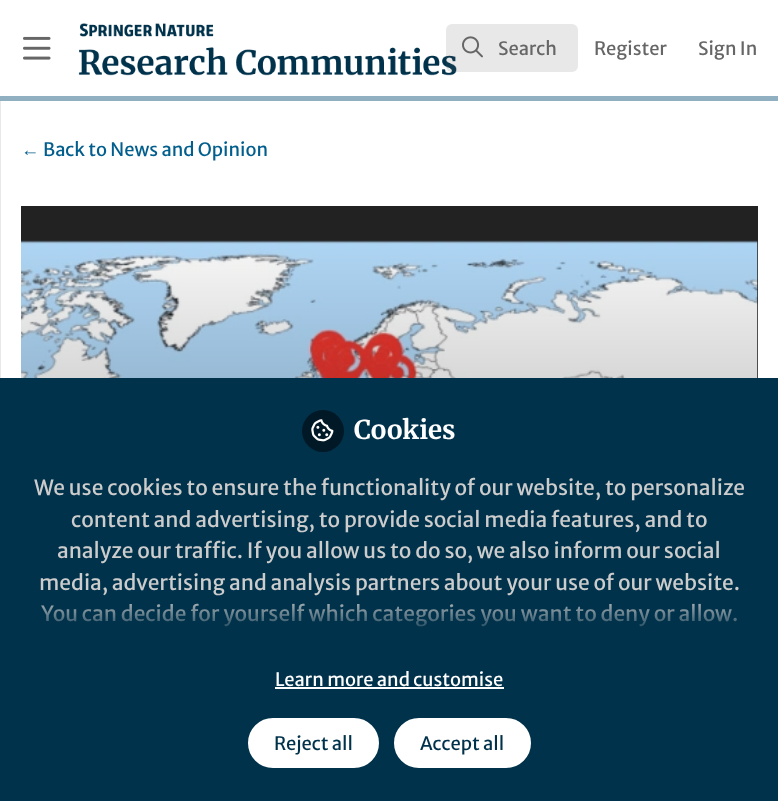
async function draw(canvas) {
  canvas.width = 778
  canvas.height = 801
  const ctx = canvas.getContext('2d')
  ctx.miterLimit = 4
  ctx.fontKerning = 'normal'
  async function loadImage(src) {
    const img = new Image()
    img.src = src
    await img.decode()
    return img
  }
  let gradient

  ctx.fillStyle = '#fff'
  ctx.fillRect(0, 0, 778, 801)
  ctx.fillStyle = '#e8e8e8'
  ctx.fillRect(0, 96, 1, 282)
  ctx.fillStyle = '#90b0c2'
  ctx.beginPath()
  ctx.moveTo(0, 96)
  ctx.lineTo(0, 101)
  ctx.lineTo(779, 101)
  ctx.lineTo(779, 5)
  ctx.lineTo(778, 5)
  ctx.lineTo(778, 96)
  ctx.closePath()
  ctx.fill()
  ctx.drawImage(await loadImage('image0.png'), 23, 36, 28, 24)
  ctx.drawImage(await loadImage('image1.png'), 78, 23, 379, 53)
  ctx.fillStyle = '#66666626'
  ctx.beginPath()
  ctx.roundRect(446, 24, 132, 48, 6)
  ctx.fill()
  ctx.drawImage(await loadImage('image2.png'), 462, 36, 21, 22)
  ctx.font = '18.4px Merriweather Sans'
  ctx.fillStyle = '#666'
  ctx.fillText('Search', 498, 55)
  ctx.fillText('Register', 594, 55)
  ctx.fillText('Sign In', 698, 55)
  ctx.font = '18.4px Liberation Sans'
  ctx.fillStyle = '#025e8d'
  ctx.fillText('←', 21, 156)
  ctx.font = '18.4px Merriweather Sans'
  ctx.fillText('Back to News and Opinion', 43, 156)
  ctx.fillStyle = '#222'
  ctx.fillRect(21, 206, 737, 172)
  ctx.drawImage(await loadImage('image3.png'), 21, 240, 737, 138)
  gradient = ctx.createLinearGradient(389, 205, 389, 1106)
  gradient.addColorStop(0, '#00000000')
  gradient.addColorStop(1, '#000000cc')
  ctx.fillStyle = gradient
  ctx.fillRect(21, 241, 737, 137)
  ctx.fillStyle = '#01324b'
  ctx.fillRect(0, 378, 778, 423)
  ctx.fillStyle = '#011926'
  ctx.beginPath()
  ctx.arc(323, 431, 21, 0, 2 * Math.PI)
  ctx.fill()
  ctx.drawImage(await loadImage('image4.png'), 311, 419, 23, 23)
  ctx.font = 'bold 26px Merriweather'
  ctx.fillStyle = '#fff'
  ctx.fillText('Cookies', 354, 439)
  ctx.font = '21px Merriweather Sans'
  ctx.fillStyle = '#ccc'
  ctx.fillText('We use cookies to ensure the functionality of our website, to personalize', 34, 495)
  ctx.fillText('content and advertising, to provide social media features, and to', 71, 527)
  ctx.fillText('analyze our traffic. If you allow us to do so, we also inform our social', 57, 558)
  ctx.fillText('media, advertising and analysis partners about your use of our website.', 39, 590)
  ctx.fillText('You can decide for yourself which categories you want to deny or allow.', 41, 621)
  gradient = ctx.createLinearGradient(389, 636, 389, 594)
  gradient.addColorStop(0, '#01324b')
  gradient.addColorStop(1, '#01324b00')
  ctx.fillStyle = gradient
  ctx.fillRect(40, 603, 697, 24)
  ctx.font = '18.4px Merriweather Sans'
  ctx.fillStyle = '#fff'
  ctx.fillText('Learn more and customise', 275, 686)
  ctx.fillRect(275, 687, 229, 2)
  ctx.beginPath()
  ctx.roundRect(247, 717, 133, 52, 26)
  ctx.fill()
  ctx.strokeStyle = '#01324b'
  ctx.lineWidth = 2
  ctx.stroke()
  ctx.fillStyle = '#01324b'
  ctx.fillText('Reject all', 274, 750)
  ctx.fillStyle = '#fff'
  ctx.beginPath()
  ctx.roundRect(393, 717, 139, 52, 26)
  ctx.fill()
  ctx.stroke()
  ctx.fillStyle = '#01324b'
  ctx.fillText('Accept all', 420, 750)
}

draw(document.querySelector('canvas'))
